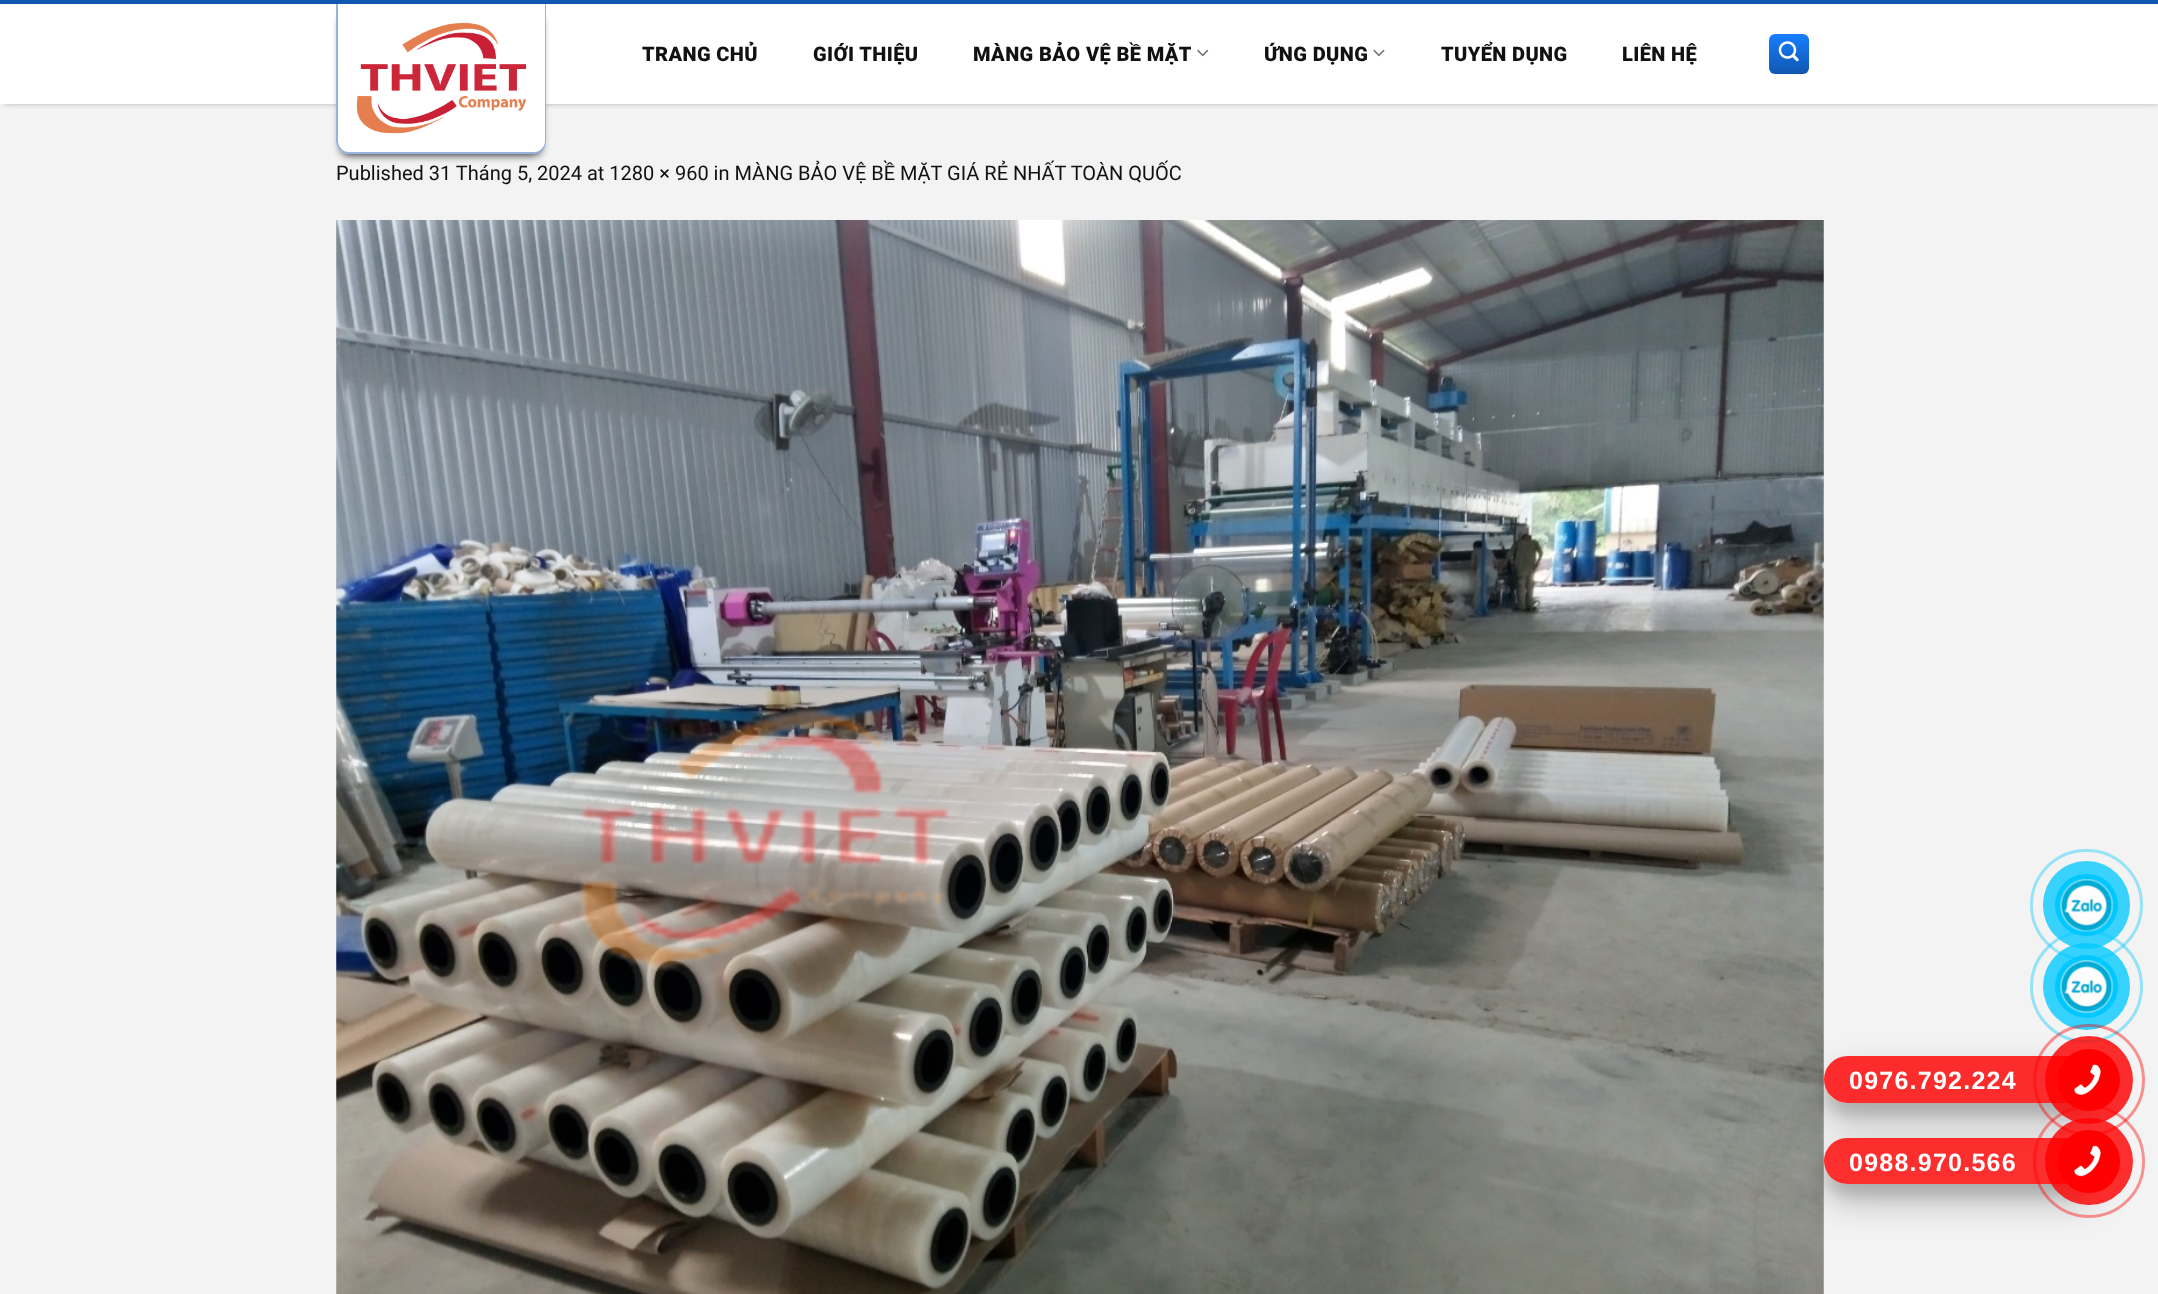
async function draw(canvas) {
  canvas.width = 2158
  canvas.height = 1294
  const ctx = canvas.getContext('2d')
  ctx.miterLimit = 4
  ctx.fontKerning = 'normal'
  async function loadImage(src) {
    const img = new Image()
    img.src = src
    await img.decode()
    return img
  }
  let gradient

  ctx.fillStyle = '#f3f3f3'
  ctx.fillRect(0, 0, 2158, 1294)
  ctx.fillStyle = '#00000059'
  ctx.filter = 'blur(3px)'
  ctx.beginPath()
  ctx.rect(4, 4, 2154, 99)
  ctx.fill()
  ctx.filter = 'none'
  ctx.fillStyle = '#1057b0'
  ctx.fillRect(0, 0, 2158, 4)
  ctx.fillStyle = '#fff'
  ctx.fillRect(0, 4, 2158, 100)
  ctx.fillStyle = '#222'
  ctx.filter = 'blur(4px)'
  ctx.beginPath()
  ctx.roundRect(341, 15, 200, 140, 8)
  ctx.fill()
  ctx.filter = 'none'
  ctx.fillStyle = '#fff'
  ctx.beginPath()
  ctx.roundRect(336, 4, 210, 150, [0, 0, 13, 13])
  ctx.fill()
  ctx.fillStyle = '#1057b070'
  ctx.beginPath()
  ctx.moveTo(336, 4)
  ctx.lineTo(546, 4)
  ctx.lineTo(546, 141)
  ctx.bezierCurveTo(546, 148, 541, 154, 534, 154)
  ctx.lineTo(349, 154)
  ctx.bezierCurveTo(342, 154, 336, 148, 336, 141)
  ctx.closePath()
  ctx.moveTo(338, 4)
  ctx.lineTo(545, 4)
  ctx.lineTo(545, 141)
  ctx.bezierCurveTo(545, 147, 540, 152, 534, 152)
  ctx.lineTo(349, 152)
  ctx.bezierCurveTo(343, 152, 338, 147, 338, 141)
  ctx.closePath()
  ctx.fill('evenodd')
  ctx.drawImage(await loadImage('image0.png'), 356, 22, 171, 112)
  ctx.letterSpacing = '0.4px'
  ctx.font = '900 20px Roboto'
  ctx.fillStyle = '#111'
  ctx.fillText('TRANG CHỦ', 642, 61)
  ctx.fillText('GIỚI THIỆU', 813, 61)
  ctx.fillText('MÀNG BẢO VỆ BỀ MẶT', 973, 61)
  ctx.drawImage(await loadImage('image1.png'), 1197, 49, 12, 8)
  ctx.fillText('ỨNG DỤNG', 1264, 61)
  ctx.drawImage(await loadImage('image2.png'), 1373, 49, 12, 8)
  ctx.fillText('TUYỂN DỤNG', 1441, 61)
  ctx.fillText('LIÊN HỆ', 1622, 61)
  gradient = ctx.createLinearGradient(1789, 34, 1789, 74)
  gradient.addColorStop(0, '#177eff')
  gradient.addColorStop(1, '#1057b0')
  ctx.fillStyle = gradient
  ctx.beginPath()
  ctx.roundRect(1769, 34, 40, 40, 6)
  ctx.fill()
  ctx.drawImage(await loadImage('image3.png'), 1778, 41, 21, 21)
  ctx.letterSpacing = '0px'
  ctx.font = '20px Roboto'
  ctx.fillStyle = '#111'
  ctx.fillText('Published 31 Tháng 5, 2024 at 1280 × 960 in MÀNG BẢO VỆ BỀ MẶT GIÁ RẺ NHẤT TOÀN QUỐC', 336, 180)
  ctx.drawImage(await loadImage('image4.png'), 336, 220, 1488, 1074)
  ctx.beginPath()
  ctx.roundRect(2031.5, 850.5, 110, 109, 54.5)
  ctx.strokeStyle = '#96e3f8'
  ctx.lineWidth = 3
  ctx.stroke()
  ctx.fillStyle = '#38d2fc'
  ctx.beginPath()
  ctx.roundRect(2043, 861, 87, 88, 43.5)
  ctx.fill()
  ctx.fillStyle = '#00c8ff'
  ctx.beginPath()
  ctx.roundRect(2055, 874, 63, 62, 31)
  ctx.fill()
  ctx.drawImage(await loadImage('image5.png'), 2060, 879, 54, 54)
  ctx.beginPath()
  ctx.arc(2086.5, 986.5, 55, 0, 2 * Math.PI)
  ctx.strokeStyle = '#00c8ff66'
  ctx.stroke()
  ctx.fillStyle = '#00c8ffc9'
  ctx.beginPath()
  ctx.arc(2086.5, 986.5, 43.5, 0, 2 * Math.PI)
  ctx.fill()
  ctx.fillStyle = '#00c8ff'
  ctx.beginPath()
  ctx.arc(2086.5, 986.5, 31.5, 0, 2 * Math.PI)
  ctx.fill()
  ctx.drawImage(await loadImage('image6.png'), 2060, 960, 54, 54)
  ctx.save()
  ctx.beginPath()
  ctx.moveTo(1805, 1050)
  ctx.lineTo(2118, 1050)
  ctx.lineTo(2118, 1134)
  ctx.lineTo(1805, 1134)
  ctx.closePath()
  ctx.moveTo(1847.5, 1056)
  ctx.lineTo(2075.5, 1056)
  ctx.bezierCurveTo(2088.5, 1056, 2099, 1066.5, 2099, 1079.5)
  ctx.bezierCurveTo(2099, 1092.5, 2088.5, 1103, 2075.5, 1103)
  ctx.lineTo(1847.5, 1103)
  ctx.bezierCurveTo(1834.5, 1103, 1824, 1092.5, 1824, 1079.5)
  ctx.bezierCurveTo(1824, 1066.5, 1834.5, 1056, 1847.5, 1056)
  ctx.closePath()
  ctx.clip('evenodd')
  ctx.fillStyle = '#0000001a'
  ctx.filter = 'blur(6px)'
  ctx.beginPath()
  ctx.roundRect(1824, 1069, 275, 46, 23)
  ctx.fill()
  ctx.filter = 'none'
  ctx.restore()
  ctx.save()
  ctx.beginPath()
  ctx.moveTo(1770, 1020)
  ctx.lineTo(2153, 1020)
  ctx.lineTo(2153, 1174)
  ctx.lineTo(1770, 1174)
  ctx.closePath()
  ctx.moveTo(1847.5, 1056)
  ctx.lineTo(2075.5, 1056)
  ctx.bezierCurveTo(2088.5, 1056, 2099, 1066.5, 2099, 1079.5)
  ctx.bezierCurveTo(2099, 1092.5, 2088.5, 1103, 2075.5, 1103)
  ctx.lineTo(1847.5, 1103)
  ctx.bezierCurveTo(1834.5, 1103, 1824, 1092.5, 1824, 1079.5)
  ctx.bezierCurveTo(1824, 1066.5, 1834.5, 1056, 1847.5, 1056)
  ctx.closePath()
  ctx.clip('evenodd')
  ctx.fillStyle = '#00000040'
  ctx.filter = 'blur(17.5px)'
  ctx.beginPath()
  ctx.roundRect(1824, 1074, 275, 46, 23)
  ctx.fill()
  ctx.filter = 'none'
  ctx.restore()
  ctx.fillStyle = '#ff0000d1'
  ctx.beginPath()
  ctx.roundRect(1824, 1056, 275, 47, 23.5)
  ctx.fill()
  ctx.beginPath()
  ctx.arc(2089, 1080, 54.5, 0, 2 * Math.PI)
  ctx.strokeStyle = '#ff000069'
  ctx.stroke()
  ctx.beginPath()
  ctx.arc(2089, 1080, 44, 0, 2 * Math.PI)
  ctx.fill()
  ctx.letterSpacing = '1.25px'
  ctx.font = 'bold 25px Liberation Sans'
  ctx.fillStyle = '#fff'
  ctx.fillText('0976.792.224', 1849, 1089)
  ctx.fillStyle = '#f00'
  ctx.beginPath()
  ctx.arc(2089, 1080, 31, 0, 2 * Math.PI)
  ctx.fill()
  ctx.drawImage(await loadImage('image7.png'), 2074, 1064, 27, 31)
  ctx.save()
  ctx.beginPath()
  ctx.moveTo(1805, 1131)
  ctx.lineTo(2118, 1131)
  ctx.lineTo(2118, 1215)
  ctx.lineTo(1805, 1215)
  ctx.closePath()
  ctx.moveTo(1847, 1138)
  ctx.lineTo(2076, 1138)
  ctx.bezierCurveTo(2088.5, 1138, 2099, 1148.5, 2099, 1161)
  ctx.bezierCurveTo(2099, 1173.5, 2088.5, 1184, 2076, 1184)
  ctx.lineTo(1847, 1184)
  ctx.bezierCurveTo(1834.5, 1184, 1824, 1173.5, 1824, 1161)
  ctx.bezierCurveTo(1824, 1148.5, 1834.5, 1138, 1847, 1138)
  ctx.closePath()
  ctx.clip('evenodd')
  ctx.fillStyle = '#0000001a'
  ctx.filter = 'blur(6px)'
  ctx.beginPath()
  ctx.roundRect(1824, 1150, 275, 46, 23)
  ctx.fill()
  ctx.filter = 'none'
  ctx.restore()
  ctx.save()
  ctx.beginPath()
  ctx.moveTo(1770, 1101)
  ctx.lineTo(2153, 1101)
  ctx.lineTo(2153, 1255)
  ctx.lineTo(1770, 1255)
  ctx.closePath()
  ctx.moveTo(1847, 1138)
  ctx.lineTo(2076, 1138)
  ctx.bezierCurveTo(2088.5, 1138, 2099, 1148.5, 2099, 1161)
  ctx.bezierCurveTo(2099, 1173.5, 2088.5, 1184, 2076, 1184)
  ctx.lineTo(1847, 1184)
  ctx.bezierCurveTo(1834.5, 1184, 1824, 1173.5, 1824, 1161)
  ctx.bezierCurveTo(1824, 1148.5, 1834.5, 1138, 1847, 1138)
  ctx.closePath()
  ctx.clip('evenodd')
  ctx.fillStyle = '#00000040'
  ctx.filter = 'blur(17.5px)'
  ctx.beginPath()
  ctx.roundRect(1824, 1155, 275, 46, 23)
  ctx.fill()
  ctx.filter = 'none'
  ctx.restore()
  ctx.fillStyle = '#ff0000cf'
  ctx.beginPath()
  ctx.roundRect(1824, 1138, 275, 46, 23)
  ctx.fill()
  ctx.beginPath()
  ctx.roundRect(2034.5, 1106.5, 109, 110, 54.5)
  ctx.strokeStyle = '#ff000066'
  ctx.stroke()
  ctx.beginPath()
  ctx.roundRect(2045, 1118, 88, 87, 43.5)
  ctx.fill()
  ctx.fillStyle = '#fff'
  ctx.fillText('0988.970.566', 1849, 1171)
  ctx.fillStyle = '#f00'
  ctx.beginPath()
  ctx.roundRect(2058, 1130, 62, 63, 31)
  ctx.fill()
  ctx.drawImage(await loadImage('image8.png'), 2074, 1145, 27, 32)
}

draw(document.querySelector('canvas'))
